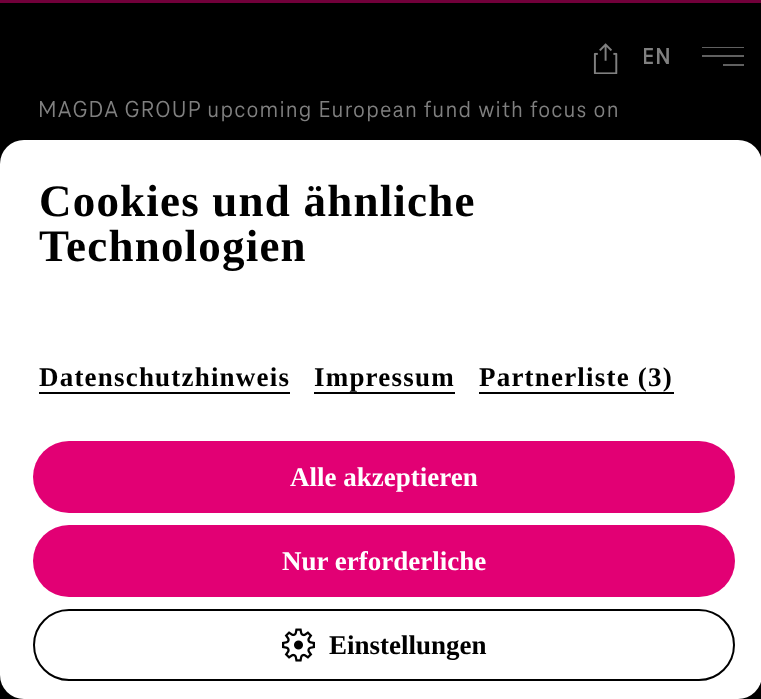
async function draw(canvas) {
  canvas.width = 761
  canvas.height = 699
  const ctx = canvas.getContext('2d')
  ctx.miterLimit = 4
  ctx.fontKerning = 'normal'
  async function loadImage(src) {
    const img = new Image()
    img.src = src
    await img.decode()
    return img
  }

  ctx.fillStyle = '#000'
  ctx.fillRect(0, 0, 761, 699)
  ctx.fillStyle = '#71003a'
  ctx.fillRect(0, 0, 761, 3)
  ctx.letterSpacing = '1.2px'
  ctx.font = 'bold 24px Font'
  ctx.fillStyle = '#808080'
  ctx.fillText('EN', 642, 64)
  ctx.fillStyle = '#000'
  ctx.fillRect(643, 48, 1, 16)
  ctx.drawImage(await loadImage('image0.png'), 593, 43, 25, 31)
  ctx.fillStyle = '#606060'
  ctx.fillRect(702, 47, 42, 1)
  ctx.fillRect(702, 55, 42, 2)
  ctx.fillRect(723, 64, 21, 2)
  ctx.font = '24px Font'
  ctx.fillStyle = '#808080'
  ctx.fillText('MAGDA GROUP upcoming European fund with focus on', 38, 117)
  ctx.fillStyle = '#fff'
  ctx.beginPath()
  ctx.roundRect(0, 140, 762, 559, 24)
  ctx.fill()
  ctx.font = 'bold 45px Liberation Serif'
  ctx.fillStyle = '#000'
  ctx.fillText('Cookies und ähnliche', 39, 216)
  ctx.fillText('Technologien', 39, 261)
  ctx.font = 'bold 27px Liberation Serif'
  ctx.fillText('Datenschutzhinweis', 39, 386)
  ctx.fillRect(39, 392, 251, 2)
  ctx.fillText('Impressum', 314, 386)
  ctx.fillRect(314, 392, 141, 2)
  ctx.fillText('Partnerliste (3)', 479, 386)
  ctx.fillRect(479, 392, 195, 2)
  ctx.fillStyle = '#e20074'
  ctx.beginPath()
  ctx.roundRect(33, 441, 702, 72, 36)
  ctx.fill()
  ctx.letterSpacing = '0px'
  ctx.fillStyle = '#fff'
  ctx.fillText('Alle akzeptieren', 290, 486)
  ctx.fillStyle = '#e20074'
  ctx.beginPath()
  ctx.roundRect(33, 525, 702, 72, 36)
  ctx.fill()
  ctx.fillStyle = '#fff'
  ctx.fillText('Nur erforderliche', 282, 570)
  ctx.beginPath()
  ctx.roundRect(34, 610, 700, 70, 35)
  ctx.strokeStyle = '#000'
  ctx.lineWidth = 2
  ctx.stroke()
  ctx.drawImage(await loadImage('image1.png'), 282, 628, 33, 34)
  ctx.fillStyle = '#000'
  ctx.fillText('Einstellungen', 329, 654)
}

draw(document.querySelector('canvas'))
